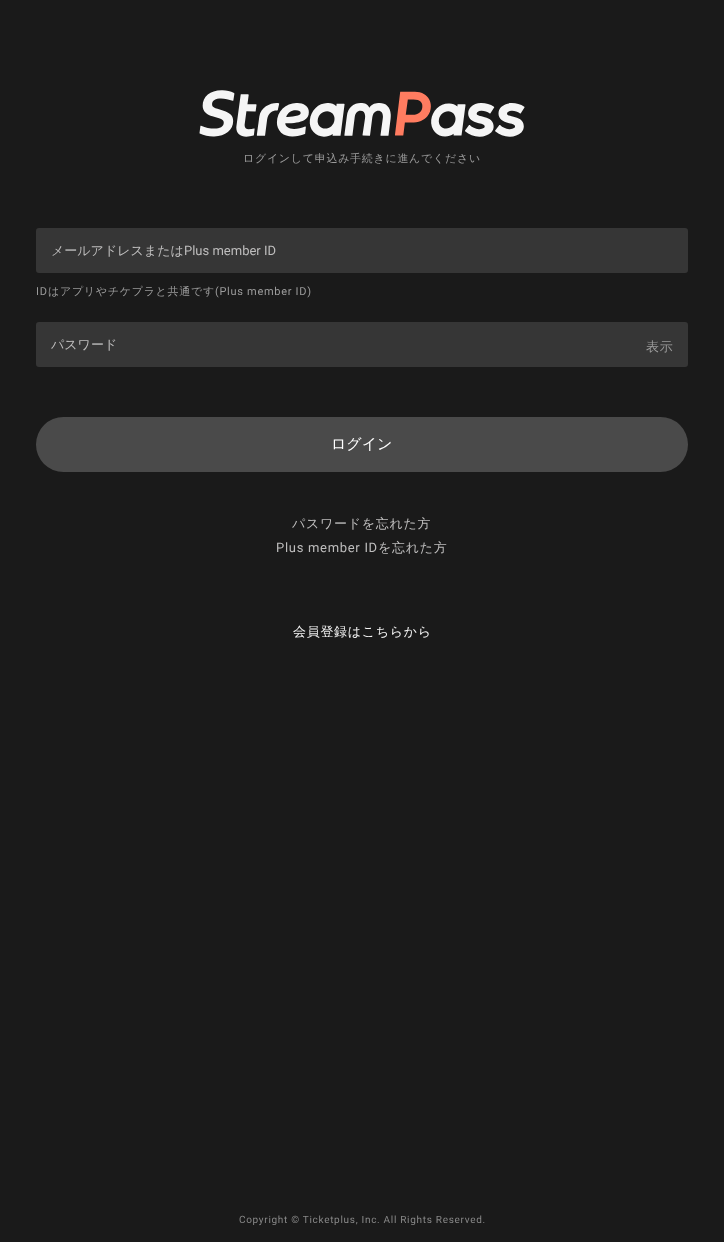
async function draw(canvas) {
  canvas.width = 724
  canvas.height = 1242
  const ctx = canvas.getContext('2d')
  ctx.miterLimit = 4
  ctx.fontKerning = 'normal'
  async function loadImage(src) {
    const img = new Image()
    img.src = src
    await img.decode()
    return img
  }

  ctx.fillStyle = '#1a1a1a'
  ctx.fillRect(0, 0, 724, 1242)
  ctx.drawImage(await loadImage('image0.png'), 199, 90, 326, 47)
  ctx.letterSpacing = '0.7px'
  ctx.font = '500 11px WenQuanYi Zen Hei'
  ctx.fillStyle = '#9b9b9b'
  ctx.fillText('ログインして申込み手続きに進んでください', 243, 162)
  ctx.fillStyle = '#363636'
  ctx.beginPath()
  ctx.roundRect(36, 228, 652, 45, 3)
  ctx.fill()
  ctx.letterSpacing = '0px'
  ctx.font = '500 13px WenQuanYi Zen Hei'
  ctx.fillStyle = '#bebdbd'
  ctx.fillText('メールアドレスまたは', 51, 255)
  ctx.font = '13px Roboto'
  ctx.fillText('Plus member ID', 184, 255)
  ctx.letterSpacing = '0.7px'
  ctx.font = '11px Roboto'
  ctx.fillStyle = '#9b9b9b'
  ctx.fillText('ID', 36, 295)
  ctx.font = '500 11px WenQuanYi Zen Hei'
  ctx.fillText('はアプリやチケプラと共通です', 48, 295)
  ctx.font = '11px Roboto'
  ctx.fillText('(Plus member ID)', 215, 295)
  ctx.fillStyle = '#363636'
  ctx.beginPath()
  ctx.roundRect(36, 322, 652, 45, 3)
  ctx.fill()
  ctx.letterSpacing = '0px'
  ctx.font = '500 13px WenQuanYi Zen Hei'
  ctx.fillStyle = '#bebdbd'
  ctx.fillText('パスワード', 51, 349)
  ctx.letterSpacing = '0.7px'
  ctx.fillStyle = '#9b9b9b'
  ctx.fillText('表示', 646, 351)
  ctx.fillStyle = '#4a4a4a'
  ctx.beginPath()
  ctx.roundRect(36, 417, 652, 55, 27.5)
  ctx.fill()
  ctx.letterSpacing = '0px'
  ctx.font = '500 15px WenQuanYi Zen Hei'
  ctx.fillStyle = '#fff'
  ctx.fillText('ログイン', 331, 449)
  ctx.letterSpacing = '0.7px'
  ctx.font = '500 13px WenQuanYi Zen Hei'
  ctx.fillStyle = '#bebdbd'
  ctx.fillText('パスワードを忘れた方', 292, 528)
  ctx.font = '13px Roboto'
  ctx.fillText('Plus member ID', 276, 552)
  ctx.font = '500 13px WenQuanYi Zen Hei'
  ctx.fillText('を忘れた方', 378, 552)
  ctx.fillStyle = '#f5f5f5'
  ctx.fillText('会員登録はこちらから', 293, 636)
  ctx.font = '10px Roboto'
  ctx.fillStyle = '#888'
  ctx.fillText('Copyright © Ticketplus, Inc. All Rights Reserved.', 239, 1223)
}

draw(document.querySelector('canvas'))
